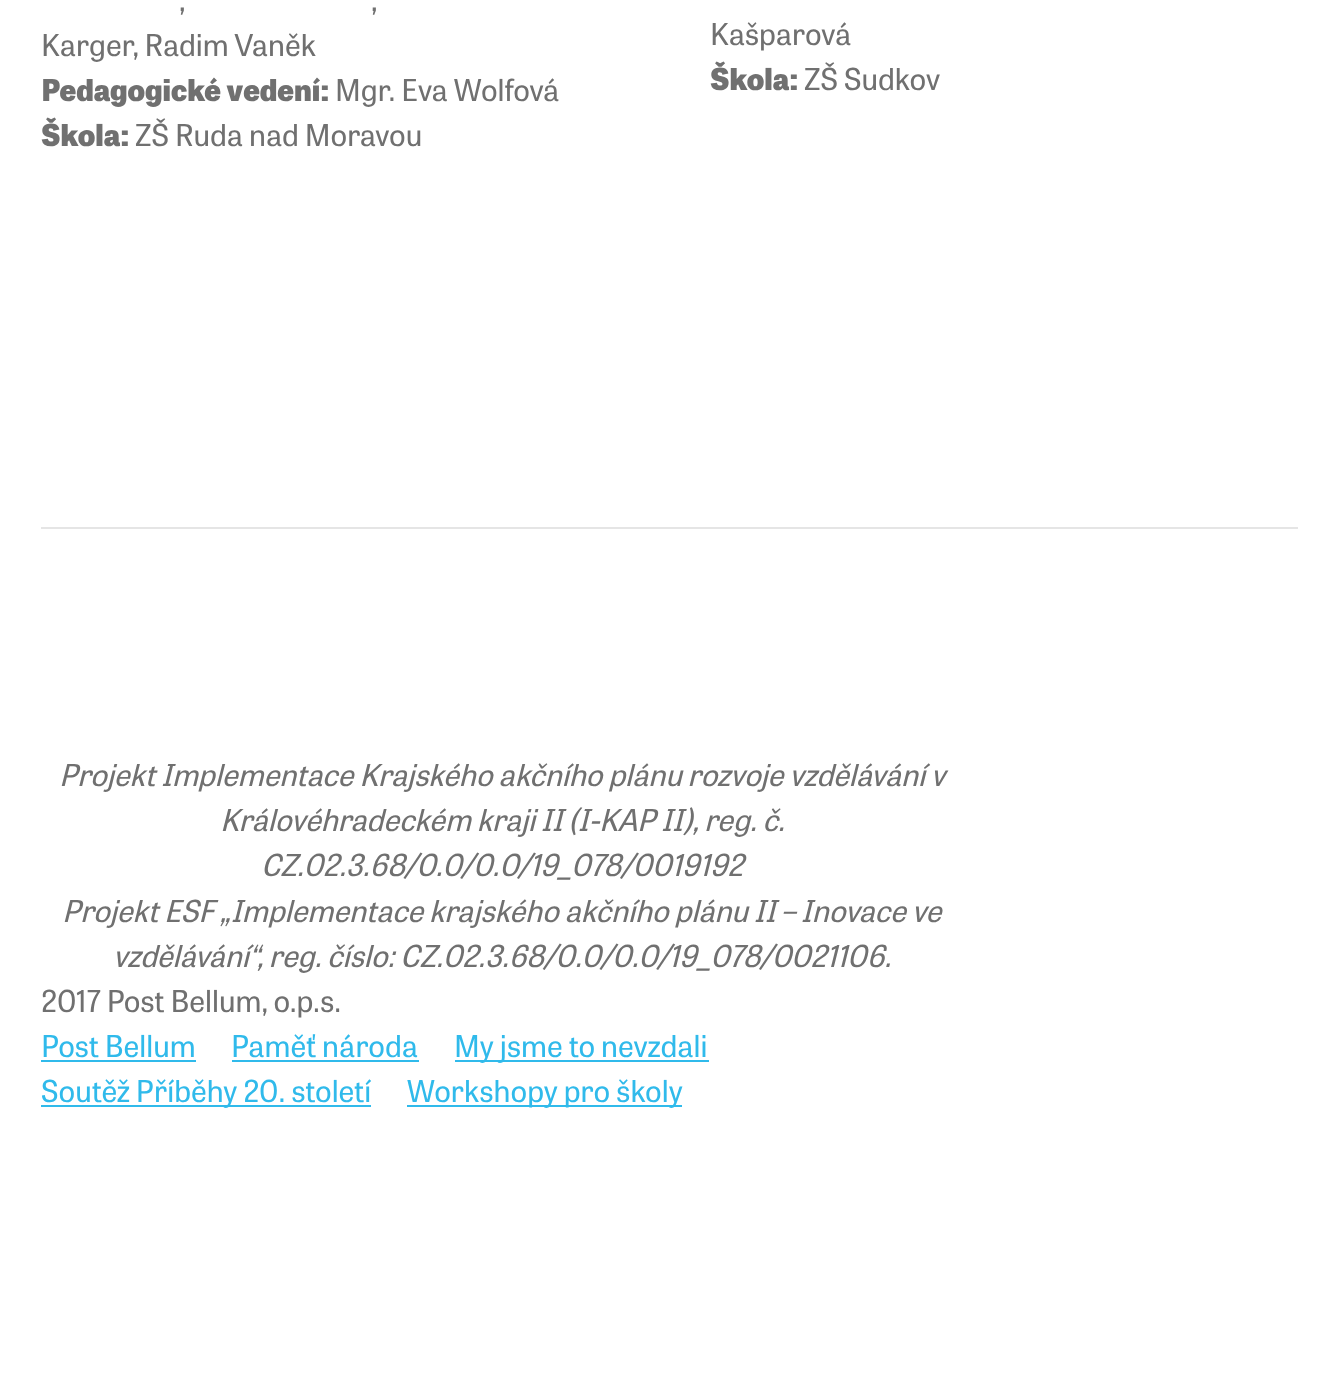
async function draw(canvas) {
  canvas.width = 1338
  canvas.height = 1391
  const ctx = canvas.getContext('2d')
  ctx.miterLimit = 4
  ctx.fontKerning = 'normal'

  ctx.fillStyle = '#fff'
  ctx.fillRect(0, 0, 1338, 1391)
  ctx.font = '30.1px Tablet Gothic'
  ctx.fillStyle = '#707070'
  ctx.fillText(',', 179, 11)
  ctx.fillText(',', 371, 11)
  ctx.fillText('Karger, Radim Vaněk', 41, 56)
  ctx.font = '800 30.1px Tablet Gothic'
  ctx.fillText('Pedagogické vedení:', 41, 101)
  ctx.font = '30.1px Tablet Gothic'
  ctx.fillText('Mgr. Eva Wolfová', 335, 101)
  ctx.font = '800 30.1px Tablet Gothic'
  ctx.fillText('Škola:', 41, 146)
  ctx.font = '30.1px Tablet Gothic'
  ctx.fillText('ZŠ Ruda nad Moravou', 135, 146)
  ctx.fillText('Kašparová', 710, 45)
  ctx.font = '800 30.1px Tablet Gothic'
  ctx.fillText('Škola:', 710, 90)
  ctx.font = '30.1px Tablet Gothic'
  ctx.fillText('ZŠ Sudkov', 804, 90)
  ctx.fillStyle = '#e5e5e5'
  ctx.fillRect(41, 527, 1257, 2)
  ctx.font = 'italic 30.1px Tablet Gothic'
  ctx.fillStyle = '#707070'
  ctx.fillText('Projekt Implementace Krajského akčního plánu rozvoje vzdělávání v', 59, 786)
  ctx.fillText('Královéhradeckém kraji II (I-KAP II), reg. č.', 220, 831)
  ctx.fillText('CZ.02.3.68/0.0/0.0/19_078/0019192', 261, 876)
  ctx.fillText('Projekt ESF „Implementace krajského akčního plánu II – Inovace ve', 62, 922)
  ctx.fillText('vzdělávání“, reg. číslo: CZ.02.3.68/0.0/0.0/19_078/0021106.', 113, 967)
  ctx.font = '30.1px Tablet Gothic'
  ctx.fillText('2017 Post Bellum, o.p.s.', 41, 1012)
  ctx.fillStyle = '#30baeb'
  ctx.fillText('Post Bellum', 41, 1057)
  ctx.fillRect(41, 1060, 155, 2)
  ctx.fillText('Paměť národa', 231, 1057)
  ctx.fillRect(232, 1060, 187, 2)
  ctx.fillRect(455, 1060, 254, 2)
  ctx.fillText('My jsme to nevzdali', 454, 1057)
  ctx.fillRect(41, 1105, 330, 2)
  ctx.fillText('Soutěž Příběhy 20. století', 41, 1102)
  ctx.fillRect(407, 1105, 275, 2)
  ctx.fillText('Workshopy pro školy', 407, 1102)
}

draw(document.querySelector('canvas'))
